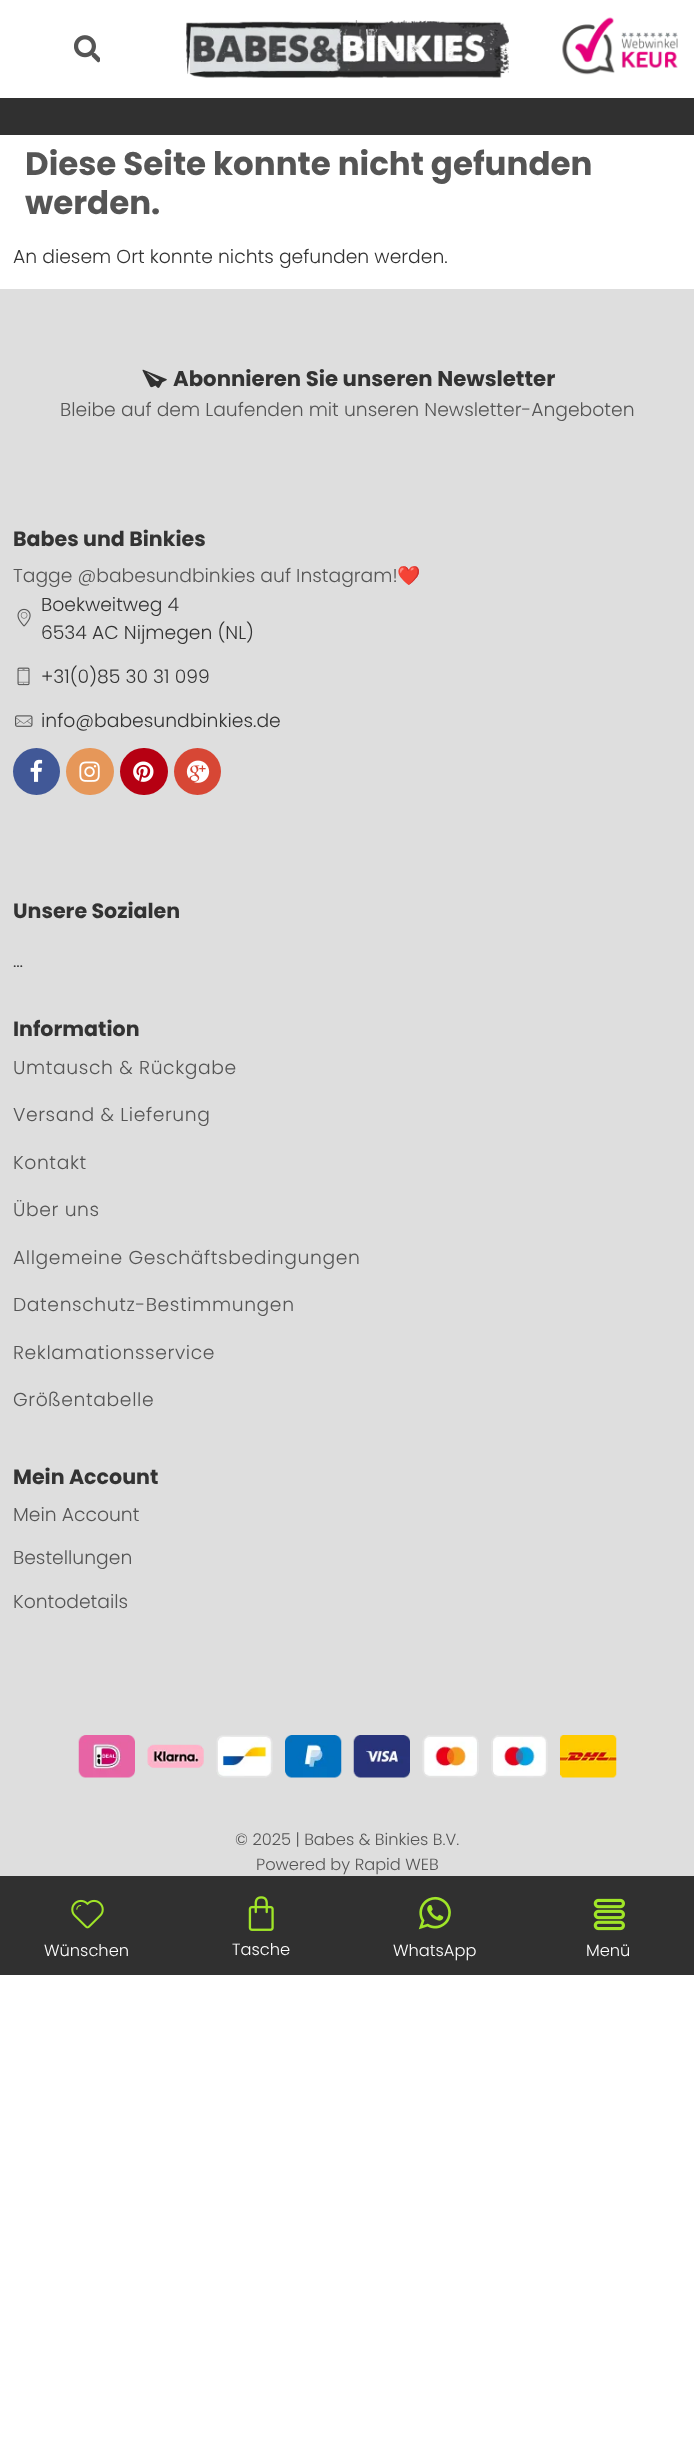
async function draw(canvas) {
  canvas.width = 694
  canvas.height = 2455
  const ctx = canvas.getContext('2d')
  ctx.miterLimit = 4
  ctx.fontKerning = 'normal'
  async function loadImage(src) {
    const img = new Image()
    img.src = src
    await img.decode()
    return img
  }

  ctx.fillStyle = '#fff'
  ctx.fillRect(0, 0, 694, 2455)
  ctx.drawImage(await loadImage('image0.png'), 74, 35, 26, 28)
  ctx.drawImage(await loadImage('image1.png'), 186, 20, 323, 58)
  ctx.drawImage(await loadImage('image2.png'), 562, 17, 116, 58)
  ctx.fillStyle = '#303030'
  ctx.fillRect(0, 98, 694, 37)
  ctx.font = 'bold 32.5px Poppins'
  ctx.fillStyle = '#555'
  ctx.fillText('Diese Seite konnte nicht gefunden', 25, 175)
  ctx.fillText('werden.', 25, 214)
  ctx.font = '300 18.75px Poppins'
  ctx.fillStyle = '#333'
  ctx.fillText('An diesem Ort konnte nichts gefunden werden.', 13, 263)
  ctx.fillStyle = '#dedede'
  ctx.fillRect(0, 289, 694, 1587)
  ctx.drawImage(await loadImage('image3.png'), 142, 369, 25, 19)
  ctx.font = 'bold 21.25px Poppins'
  ctx.fillStyle = '#333'
  ctx.fillText('Abonnieren Sie unseren Newsletter', 173, 386)
  ctx.font = '300 18.75px Poppins'
  ctx.fillStyle = '#555'
  ctx.fillText('Bleibe auf dem Laufenden mit unseren Newsletter-Angeboten', 60, 416)
  ctx.font = 'bold 20.6px Poppins'
  ctx.fillStyle = '#333'
  ctx.fillText('Babes und Binkies', 13, 546)
  ctx.font = '300 18.75px Poppins'
  ctx.fillStyle = '#555'
  ctx.fillText('Tagge @babesundbinkies auf Instagram!', 13, 582)
  ctx.font = '18.75px Noto Color Emoji'
  ctx.fillText('❤️', 397, 582)
  ctx.drawImage(await loadImage('image4.png'), 17, 608, 14, 19)
  ctx.font = '300 18.75px Poppins'
  ctx.fillStyle = '#333'
  ctx.fillText('Boekweitweg 4', 41, 611)
  ctx.fillText('6534 AC Nijmegen (NL)', 41, 639)
  ctx.drawImage(await loadImage('image5.png'), 17, 667, 13, 19)
  ctx.fillText('+31(0)85 30 31 099', 41, 683)
  ctx.drawImage(await loadImage('image6.png'), 15, 715, 18, 12)
  ctx.fillText('info@babesundbinkies.de', 41, 727)
  ctx.fillStyle = '#415897'
  ctx.beginPath()
  ctx.arc(36.5, 771.5, 23.5, 0, 2 * Math.PI)
  ctx.fill()
  ctx.drawImage(await loadImage('image7.png'), 30, 759, 13, 23)
  ctx.fillStyle = '#e69759'
  ctx.beginPath()
  ctx.roundRect(66, 748, 48, 47, 23.5)
  ctx.fill()
  ctx.drawImage(await loadImage('image8.png'), 79, 761, 21, 21)
  ctx.fillStyle = '#b60012'
  ctx.beginPath()
  ctx.roundRect(120, 748, 48, 47, 23.5)
  ctx.fill()
  ctx.drawImage(await loadImage('image9.png'), 133, 761, 21, 21)
  ctx.fillStyle = '#d74735'
  ctx.beginPath()
  ctx.arc(197.5, 771.5, 23.5, 0, 2 * Math.PI)
  ctx.fill()
  ctx.drawImage(await loadImage('image10.png'), 186, 760, 24, 23)
  ctx.font = 'bold 20.6px Poppins'
  ctx.fillStyle = '#333'
  ctx.fillText('Unsere Sozialen', 13, 918)
  ctx.font = '300 18.75px Poppins'
  ctx.fillText('…', 13, 967)
  ctx.font = 'bold 20.6px Poppins'
  ctx.fillText('Information', 13, 1036)
  ctx.letterSpacing = '0.6px'
  ctx.font = '300 18.75px Poppins'
  ctx.fillStyle = '#555'
  ctx.fillText('Umtausch & Rückgabe', 13, 1074)
  ctx.fillText('Versand & Lieferung', 13, 1121)
  ctx.fillText('Kontakt', 13, 1169)
  ctx.fillText('Über uns', 13, 1216)
  ctx.fillText('Allgemeine Geschäftsbedingungen', 13, 1264)
  ctx.fillText('Datenschutz-Bestimmungen', 13, 1311)
  ctx.fillText('Reklamationsservice', 13, 1359)
  ctx.fillText('Größentabelle', 13, 1406)
  ctx.letterSpacing = '0px'
  ctx.font = 'bold 20.6px Poppins'
  ctx.fillStyle = '#333'
  ctx.fillText('Mein Account', 13, 1484)
  ctx.font = '300 18.75px Poppins'
  ctx.fillStyle = '#555'
  ctx.fillText('Mein Account', 13, 1521)
  ctx.fillText('Bestellungen', 13, 1564)
  ctx.fillText('Kontodetails', 13, 1608)
  ctx.drawImage(await loadImage('image11.png'), 78, 1735, 57, 43)
  ctx.drawImage(await loadImage('image12.png'), 147, 1744, 57, 24)
  ctx.drawImage(await loadImage('image13.png'), 216, 1735, 57, 43)
  ctx.drawImage(await loadImage('image14.png'), 285, 1735, 57, 43)
  ctx.drawImage(await loadImage('image15.png'), 353, 1735, 57, 43)
  ctx.drawImage(await loadImage('image16.png'), 422, 1735, 57, 43)
  ctx.drawImage(await loadImage('image17.png'), 491, 1735, 57, 43)
  ctx.drawImage(await loadImage('image18.png'), 560, 1735, 57, 43)
  ctx.font = '300 16.25px Poppins'
  ctx.fillText('© 2025 | Babes & Binkies B.V.', 235, 1845)
  ctx.fillText('Powered by Rapid WEB', 256, 1870)
  ctx.fillStyle = '#303030'
  ctx.fillRect(0, 1876, 694, 99)
  ctx.drawImage(await loadImage('image19.png'), 71, 1899, 33, 30)
  ctx.fillStyle = '#fff'
  ctx.fillText('Wünschen', 44, 1956)
  ctx.drawImage(await loadImage('image20.png'), 248, 1896, 26, 35)
  ctx.fillText('Tasche', 232, 1955)
  ctx.drawImage(await loadImage('image21.png'), 418, 1896, 33, 34)
  ctx.fillText('WhatsApp', 393, 1956)
  ctx.drawImage(await loadImage('image22.png'), 593, 1898, 32, 33)
  ctx.fillText('Menü', 586, 1956)
}

draw(document.querySelector('canvas'))
